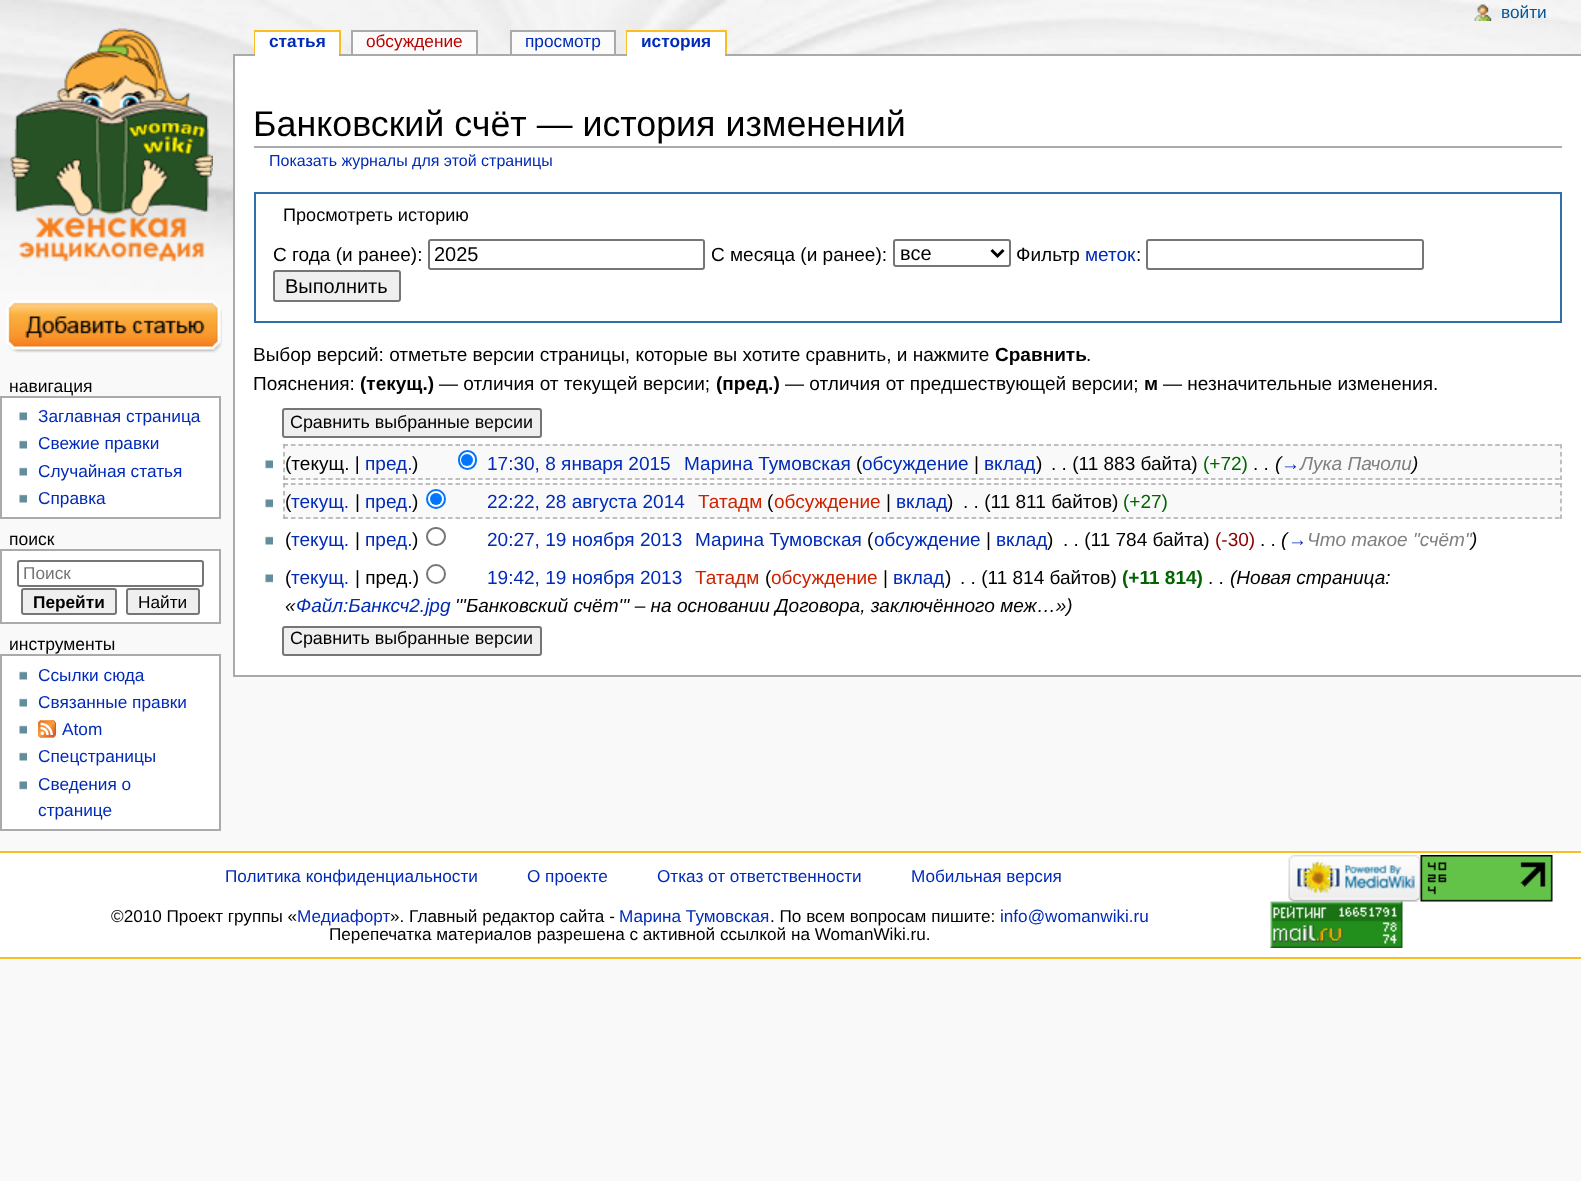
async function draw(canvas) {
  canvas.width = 1581
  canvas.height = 1181
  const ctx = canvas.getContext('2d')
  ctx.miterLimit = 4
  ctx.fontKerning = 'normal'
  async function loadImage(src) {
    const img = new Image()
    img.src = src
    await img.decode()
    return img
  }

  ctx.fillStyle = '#f9f9f9'
  ctx.fillRect(0, 0, 1581, 1181)
  ctx.drawImage(await loadImage('image0.png'), 0, 0, 1581, 292)
  ctx.drawImage(await loadImage('image1.png'), 1474, 4, 18, 17)
  ctx.font = '17.25px Liberation Sans'
  ctx.fillStyle = '#005896'
  ctx.fillText('войти', 1501, 18)
  ctx.drawImage(await loadImage('image2.png'), 10, 28, 203, 234)
  ctx.fillStyle = '#fabd23'
  ctx.fillRect(254, 30, 87, 2)
  ctx.fillRect(254, 30, 2, 24)
  ctx.fillStyle = '#aaa'
  ctx.fillRect(233, 54, 1348, 2)
  ctx.fillStyle = '#fff'
  ctx.fillRect(255, 32, 84, 24)
  ctx.font = 'bold 17.25px Liberation Sans'
  ctx.fillStyle = '#002bb8'
  ctx.fillText('статья', 269, 47)
  ctx.fillStyle = '#fabd23'
  ctx.fillRect(339, 30, 2, 24)
  ctx.fillStyle = '#fbfbfb'
  ctx.fillRect(353, 32, 123, 22)
  ctx.font = '17.25px Liberation Sans'
  ctx.fillStyle = '#ba0000'
  ctx.fillText('обсуждение', 366, 47)
  ctx.fillStyle = '#aaa'
  ctx.fillRect(351, 30, 126, 2)
  ctx.fillRect(476, 30, 2, 24)
  ctx.fillRect(351, 30, 2, 24)
  ctx.fillStyle = '#fbfbfb'
  ctx.fillRect(512, 32, 102, 22)
  ctx.fillStyle = '#002bb8'
  ctx.fillText('просмотр', 525, 47)
  ctx.fillStyle = '#aaa'
  ctx.fillRect(510, 30, 105, 2)
  ctx.fillRect(614, 30, 2, 24)
  ctx.fillRect(510, 30, 2, 24)
  ctx.fillStyle = '#fabd23'
  ctx.fillRect(626, 30, 100, 2)
  ctx.fillRect(626, 30, 2, 24)
  ctx.fillStyle = '#fff'
  ctx.fillRect(627, 32, 98, 24)
  ctx.font = 'bold 17.25px Liberation Sans'
  ctx.fillStyle = '#002bb8'
  ctx.fillText('история', 641, 47)
  ctx.fillStyle = '#fabd23'
  ctx.fillRect(725, 30, 2, 24)
  ctx.drawImage(await loadImage('image3.png'), 6, 300, 216, 53)
  ctx.font = '17.5px Liberation Sans'
  ctx.fillStyle = '#000'
  ctx.fillText('навигация', 9, 392)
  ctx.fillStyle = '#fff'
  ctx.beginPath()
  ctx.rect(1, 397, 219, 121)
  ctx.fill()
  ctx.strokeStyle = '#aaa'
  ctx.lineWidth = 2
  ctx.stroke()
  ctx.drawImage(await loadImage('image4.png'), 19, 412, 8, 9)
  ctx.font = '17.25px Liberation Sans'
  ctx.fillStyle = '#002bb8'
  ctx.fillText('Заглавная страница', 38, 422)
  ctx.drawImage(await loadImage('image5.png'), 19, 440, 8, 9)
  ctx.fillText('Свежие правки', 38, 449)
  ctx.drawImage(await loadImage('image5.png'), 19, 467, 8, 9)
  ctx.fillText('Случайная статья', 38, 477)
  ctx.drawImage(await loadImage('image5.png'), 19, 494, 8, 9)
  ctx.fillText('Справка', 38, 504)
  ctx.font = '17.5px Liberation Sans'
  ctx.fillStyle = '#000'
  ctx.fillText('поиск', 9, 545)
  ctx.fillStyle = '#fff'
  ctx.beginPath()
  ctx.rect(1, 550, 219, 73)
  ctx.fill()
  ctx.stroke()
  ctx.beginPath()
  ctx.roundRect(18, 561, 185, 25, 2)
  ctx.strokeStyle = '#767676'
  ctx.stroke()
  ctx.font = '17.25px Liberation Sans'
  ctx.fillStyle = '#757575'
  ctx.fillText('Поиск', 23, 579)
  ctx.fillStyle = '#efefef'
  ctx.beginPath()
  ctx.roundRect(22, 589, 94, 25, 2)
  ctx.fill()
  ctx.stroke()
  ctx.font = 'bold 17.25px Liberation Sans'
  ctx.fillStyle = '#000'
  ctx.fillText('Перейти', 33, 608)
  ctx.fillStyle = '#efefef'
  ctx.beginPath()
  ctx.roundRect(127, 589, 72, 25, 2)
  ctx.fill()
  ctx.stroke()
  ctx.font = '17.25px Liberation Sans'
  ctx.fillStyle = '#000'
  ctx.fillText('Найти', 138, 608)
  ctx.font = '17.5px Liberation Sans'
  ctx.fillText('инструменты', 9, 650)
  ctx.fillStyle = '#fff'
  ctx.beginPath()
  ctx.rect(1, 655, 219, 175)
  ctx.fill()
  ctx.strokeStyle = '#aaa'
  ctx.stroke()
  ctx.drawImage(await loadImage('image5.png'), 19, 671, 8, 9)
  ctx.font = '17.25px Liberation Sans'
  ctx.fillStyle = '#002bb8'
  ctx.fillText('Ссылки сюда', 38, 681)
  ctx.drawImage(await loadImage('image5.png'), 19, 698, 8, 9)
  ctx.fillText('Связанные правки', 38, 708)
  ctx.drawImage(await loadImage('image5.png'), 19, 725, 8, 9)
  ctx.drawImage(await loadImage('image6.png'), 38, 720, 18, 18)
  ctx.fillText('Atom', 62, 735)
  ctx.drawImage(await loadImage('image5.png'), 19, 752, 8, 9)
  ctx.fillText('Спецстраницы', 38, 762)
  ctx.drawImage(await loadImage('image4.png'), 19, 781, 8, 9)
  ctx.fillText('Сведения о', 38, 790)
  ctx.fillText('странице', 38, 816)
  ctx.fillStyle = '#fff'
  ctx.fillRect(235, 56, 1346, 619)
  ctx.fillStyle = '#aaa'
  ctx.fillRect(233, 675, 1348, 2)
  ctx.fillRect(233, 54, 2, 623)
  ctx.fillRect(254, 146, 1308, 2)
  ctx.font = '35.8px Liberation Sans'
  ctx.fillStyle = '#000'
  ctx.fillText('Банковский счёт — история изменений', 253, 136)
  ctx.font = '16px Liberation Sans'
  ctx.fillStyle = '#002bb8'
  ctx.fillText('Показать журналы для этой страницы', 269, 166)
  ctx.strokeStyle = '#2f6fab'
  ctx.strokeRect(255, 193, 1306, 129)
  ctx.font = '18.1px Liberation Sans'
  ctx.fillStyle = '#000'
  ctx.fillText('Просмотреть историю', 283, 221)
  ctx.font = '19.05px Liberation Sans'
  ctx.fillText('С года (и ранее):', 273, 261)
  ctx.beginPath()
  ctx.roundRect(429, 240, 275, 29, 2)
  ctx.strokeStyle = '#767676'
  ctx.stroke()
  ctx.font = '20px Liberation Sans'
  ctx.fillText('2025', 434, 261)
  ctx.font = '19.05px Liberation Sans'
  ctx.fillText('С месяца (и ранее):', 711, 261)
  ctx.beginPath()
  ctx.roundRect(894, 240, 116, 26, 2)
  ctx.stroke()
  ctx.beginPath()
  ctx.moveTo(991.5, 250)
  ctx.lineTo(997.5, 256)
  ctx.lineTo(1003.5, 250)
  ctx.strokeStyle = '#000'
  ctx.lineWidth = 3
  ctx.stroke()
  ctx.font = '20px Liberation Sans'
  ctx.fillText('все', 900, 260)
  ctx.font = '19.05px Liberation Sans'
  ctx.fillText('Фильтр', 1016, 261)
  ctx.fillStyle = '#002bb8'
  ctx.fillText('меток', 1085, 261)
  ctx.fillStyle = '#000'
  ctx.fillText(':', 1136, 261)
  ctx.beginPath()
  ctx.roundRect(1147, 240, 276, 29, 2)
  ctx.strokeStyle = '#767676'
  ctx.lineWidth = 2
  ctx.stroke()
  ctx.fillStyle = '#efefef'
  ctx.beginPath()
  ctx.roundRect(274, 271, 126, 30, 2)
  ctx.fill()
  ctx.stroke()
  ctx.font = '20px Liberation Sans'
  ctx.fillStyle = '#000'
  ctx.fillText('Выполнить', 285, 293)
  ctx.font = '19.05px Liberation Sans'
  ctx.fillText('Выбор версий: отметьте версии страницы, которые вы хотите сравнить, и нажмите', 253, 361)
  ctx.font = 'bold 19.05px Liberation Sans'
  ctx.fillText('Сравнить', 995, 361)
  ctx.font = '19.05px Liberation Sans'
  ctx.fillText('.', 1086, 361)
  ctx.fillText('Пояснения:', 253, 390)
  ctx.font = 'bold 19.05px Liberation Sans'
  ctx.fillText('(текущ.)', 360, 390)
  ctx.font = '19.05px Liberation Sans'
  ctx.fillText('— отличия от текущей версии;', 439, 390)
  ctx.font = 'bold 19.05px Liberation Sans'
  ctx.fillText('(пред.)', 716, 390)
  ctx.font = '19.05px Liberation Sans'
  ctx.fillText('— отличия от предшествующей версии;', 785, 390)
  ctx.font = 'bold 19.05px Liberation Sans'
  ctx.fillText('м', 1144, 390)
  ctx.font = '19.05px Liberation Sans'
  ctx.fillText('— незначительные изменения.', 1163, 390)
  ctx.fillStyle = '#efefef'
  ctx.beginPath()
  ctx.roundRect(283, 409, 258, 28, 2)
  ctx.fill()
  ctx.stroke()
  ctx.font = '17.9px Liberation Sans'
  ctx.fillStyle = '#000'
  ctx.fillText('Сравнить выбранные версии', 290, 428)
  ctx.fillStyle = '#f9f9f9'
  ctx.fillRect(284, 444, 1278, 36)
  ctx.beginPath()
  ctx.moveTo(283.5, 445)
  ctx.lineTo(1561.5, 445)
  ctx.strokeStyle = '#aaa'
  ctx.lineWidth = 1.5
  ctx.setLineDash([4.5, 2.98])
  ctx.stroke()
  ctx.beginPath()
  ctx.moveTo(1561, 444)
  ctx.lineTo(1561, 480)
  ctx.setLineDash([4.5, 3.38])
  ctx.stroke()
  ctx.beginPath()
  ctx.moveTo(283.5, 479)
  ctx.lineTo(1561.5, 479)
  ctx.setLineDash([4.5, 2.98])
  ctx.stroke()
  ctx.beginPath()
  ctx.moveTo(284, 444)
  ctx.lineTo(284, 480)
  ctx.setLineDash([4.5, 3.38])
  ctx.stroke()
  ctx.drawImage(await loadImage('image4.png'), 265, 460, 8, 9)
  ctx.font = '19.05px Liberation Sans'
  ctx.fillStyle = '#000'
  ctx.fillText('(текущ. |', 285, 470)
  ctx.fillStyle = '#002bb8'
  ctx.fillText('пред.', 365, 470)
  ctx.fillStyle = '#000'
  ctx.fillText(')', 412, 470)
  ctx.fillStyle = '#fff'
  ctx.beginPath()
  ctx.roundRect(459, 451, 17, 18, 8.5)
  ctx.fill()
  ctx.strokeStyle = '#0075ff'
  ctx.lineWidth = 2
  ctx.setLineDash([])
  ctx.stroke()
  ctx.fillStyle = '#0075ff'
  ctx.beginPath()
  ctx.arc(467, 460, 6, 0, 2 * Math.PI)
  ctx.fill()
  ctx.fillStyle = '#002bb8'
  ctx.fillText('17:30, 8 января 2015', 487, 470)
  ctx.fillText('Марина Тумовская', 684, 470)
  ctx.fillStyle = '#000'
  ctx.fillText('(', 856, 470)
  ctx.fillStyle = '#002bb8'
  ctx.fillText('обсуждение', 862, 470)
  ctx.fillStyle = '#000'
  ctx.fillText('|', 974, 470)
  ctx.fillStyle = '#002bb8'
  ctx.fillText('вклад', 984, 470)
  ctx.fillStyle = '#000'
  ctx.fillText(')', 1036, 470)
  ctx.fillText('. . (11 883 байта)', 1051, 470)
  ctx.fillStyle = '#006400'
  ctx.fillText('(+72)', 1203, 470)
  ctx.fillStyle = '#000'
  ctx.fillText('. .', 1253, 470)
  ctx.font = 'italic 19.05px Liberation Sans'
  ctx.fillText('(', 1275, 470)
  ctx.fillStyle = '#002bb8'
  ctx.fillText('→', 1281, 470)
  ctx.fillStyle = '#808080'
  ctx.fillText('Лука Пачоли', 1300, 470)
  ctx.fillStyle = '#000'
  ctx.fillText(')', 1412, 470)
  ctx.fillStyle = '#f9f9f9'
  ctx.fillRect(284, 483, 1278, 36)
  ctx.beginPath()
  ctx.moveTo(283.5, 484)
  ctx.lineTo(1561.5, 484)
  ctx.strokeStyle = '#aaa'
  ctx.lineWidth = 1.5
  ctx.setLineDash([4.5, 2.98])
  ctx.stroke()
  ctx.beginPath()
  ctx.moveTo(1561, 483)
  ctx.lineTo(1561, 519)
  ctx.setLineDash([4.5, 3.38])
  ctx.stroke()
  ctx.beginPath()
  ctx.moveTo(283.5, 518)
  ctx.lineTo(1561.5, 518)
  ctx.setLineDash([4.5, 2.98])
  ctx.stroke()
  ctx.beginPath()
  ctx.moveTo(284, 483)
  ctx.lineTo(284, 519)
  ctx.setLineDash([4.5, 3.38])
  ctx.stroke()
  ctx.drawImage(await loadImage('image4.png'), 265, 499, 8, 9)
  ctx.font = '19.05px Liberation Sans'
  ctx.fillStyle = '#000'
  ctx.fillText('(', 285, 508)
  ctx.fillStyle = '#002bb8'
  ctx.fillText('текущ.', 291, 508)
  ctx.fillStyle = '#000'
  ctx.fillText('|', 355, 508)
  ctx.fillStyle = '#002bb8'
  ctx.fillText('пред.', 365, 508)
  ctx.fillStyle = '#000'
  ctx.fillText(')', 412, 508)
  ctx.fillStyle = '#fff'
  ctx.beginPath()
  ctx.arc(436, 499, 9, 0, 2 * Math.PI)
  ctx.fill()
  ctx.strokeStyle = '#0075ff'
  ctx.lineWidth = 2
  ctx.setLineDash([])
  ctx.stroke()
  ctx.fillStyle = '#0075ff'
  ctx.beginPath()
  ctx.arc(436, 499, 6, 0, 2 * Math.PI)
  ctx.fill()
  ctx.fillStyle = '#002bb8'
  ctx.fillText('22:22, 28 августа 2014', 487, 508)
  ctx.fillStyle = '#c20'
  ctx.fillText('Татадм', 698, 508)
  ctx.fillStyle = '#000'
  ctx.fillText('(', 767, 508)
  ctx.fillStyle = '#c20'
  ctx.fillText('обсуждение', 774, 508)
  ctx.fillStyle = '#000'
  ctx.fillText('|', 886, 508)
  ctx.fillStyle = '#002bb8'
  ctx.fillText('вклад', 896, 508)
  ctx.fillStyle = '#000'
  ctx.fillText(')', 947, 508)
  ctx.fillText('. . (11 811 байтов)', 963, 508)
  ctx.fillStyle = '#006400'
  ctx.fillText('(+27)', 1123, 508)
  ctx.drawImage(await loadImage('image5.png'), 265, 536, 8, 9)
  ctx.fillStyle = '#000'
  ctx.fillText('(', 285, 546)
  ctx.fillText('|', 355, 546)
  ctx.fillText(')', 412, 546)
  ctx.beginPath()
  ctx.roundRect(427, 528, 18, 17, 8.5)
  ctx.strokeStyle = '#767676'
  ctx.stroke()
  ctx.fillStyle = '#002bb8'
  ctx.fillText('20:27, 19 ноября 2013', 487, 546)
  ctx.fillText('Марина Тумовская', 695, 546)
  ctx.fillStyle = '#000'
  ctx.fillText('(', 867, 546)
  ctx.fillStyle = '#002bb8'
  ctx.fillText('обсуждение', 874, 546)
  ctx.fillStyle = '#000'
  ctx.fillText('|', 986, 546)
  ctx.fillStyle = '#002bb8'
  ctx.fillText('вклад', 996, 546)
  ctx.fillStyle = '#000'
  ctx.fillText(')', 1047, 546)
  ctx.fillText('. . (11 784 байта)', 1063, 546)
  ctx.fillStyle = '#8b0000'
  ctx.fillText('(-30)', 1215, 546)
  ctx.font = 'italic 19.05px Liberation Sans'
  ctx.fillStyle = '#000'
  ctx.fillText('(', 1281, 546)
  ctx.fillStyle = '#808080'
  ctx.fillText('Что такое "счёт"', 1307, 546)
  ctx.font = '19.05px Liberation Sans'
  ctx.fillStyle = '#002bb8'
  ctx.fillText('текущ.', 291, 546)
  ctx.fillText('пред.', 365, 546)
  ctx.fillStyle = '#000'
  ctx.fillText('. .', 1260, 546)
  ctx.font = 'italic 19.05px Liberation Sans'
  ctx.fillStyle = '#002bb8'
  ctx.fillText('→', 1288, 546)
  ctx.fillStyle = '#000'
  ctx.fillText(')', 1471, 546)
  ctx.drawImage(await loadImage('image4.png'), 265, 574, 8, 9)
  ctx.font = '19.05px Liberation Sans'
  ctx.fillText('(', 285, 584)
  ctx.fillStyle = '#002bb8'
  ctx.fillText('текущ.', 291, 584)
  ctx.fillStyle = '#000'
  ctx.fillText('| пред.)', 355, 584)
  ctx.beginPath()
  ctx.arc(436, 574, 9, 0, 2 * Math.PI)
  ctx.stroke()
  ctx.fillStyle = '#002bb8'
  ctx.fillText('19:42, 19 ноября 2013', 487, 584)
  ctx.fillStyle = '#c20'
  ctx.fillText('Татадм', 695, 584)
  ctx.fillStyle = '#000'
  ctx.fillText('(', 765, 584)
  ctx.fillStyle = '#c20'
  ctx.fillText('обсуждение', 771, 584)
  ctx.fillStyle = '#000'
  ctx.fillText('|', 883, 584)
  ctx.fillStyle = '#002bb8'
  ctx.fillText('вклад', 893, 584)
  ctx.fillStyle = '#000'
  ctx.fillText(')', 945, 584)
  ctx.fillText('. . (11 814 байтов)', 960, 584)
  ctx.font = 'bold 19.05px Liberation Sans'
  ctx.fillStyle = '#006400'
  ctx.fillText('(+11 814)', 1122, 584)
  ctx.font = '19.05px Liberation Sans'
  ctx.fillStyle = '#000'
  ctx.fillText('. .', 1208, 584)
  ctx.font = 'italic 19.05px Liberation Sans'
  ctx.fillText('(Новая страница:', 1230, 584)
  ctx.fillText('«', 285, 612)
  ctx.fillStyle = '#002bb8'
  ctx.fillText('Файл:Банксч2.jpg', 296, 612)
  ctx.fillStyle = '#000'
  ctx.fillText('\'\'\'Банковский счёт\'\'\' – на основании Договора, заключённого меж…»)', 455, 612)
  ctx.fillStyle = '#efefef'
  ctx.beginPath()
  ctx.roundRect(283, 627, 258, 28, 2)
  ctx.fill()
  ctx.stroke()
  ctx.font = '17.9px Liberation Sans'
  ctx.fillStyle = '#000'
  ctx.fillText('Сравнить выбранные версии', 290, 644)
  ctx.fillStyle = '#fff'
  ctx.fillRect(0, 853, 1581, 104)
  ctx.fillStyle = '#fabd23'
  ctx.fillRect(0, 851, 1581, 2)
  ctx.fillRect(0, 957, 1581, 2)
  ctx.font = '17.15px Liberation Sans'
  ctx.fillStyle = '#002bb8'
  ctx.fillText('Политика конфиденциальности', 225, 882)
  ctx.fillText('О проекте', 527, 882)
  ctx.fillText('Отказ от ответственности', 657, 882)
  ctx.fillText('Мобильная версия', 911, 882)
  ctx.drawImage(await loadImage('image7.png'), 1288, 855, 133, 47)
  ctx.drawImage(await loadImage('image8.png'), 1420, 855, 133, 47)
  ctx.drawImage(await loadImage('image9.png'), 1270, 901, 133, 47)
  ctx.fillStyle = '#000'
  ctx.fillText('©2010 Проект группы «', 111, 922)
  ctx.fillStyle = '#002bb8'
  ctx.fillText('Медиафорт', 297, 922)
  ctx.fillStyle = '#000'
  ctx.fillText('». Главный редактор сайта -', 390, 922)
  ctx.fillStyle = '#002bb8'
  ctx.fillText('Марина Тумовская', 619, 922)
  ctx.fillStyle = '#000'
  ctx.fillText('. По всем вопросам пишите:', 770, 922)
  ctx.fillStyle = '#002bb8'
  ctx.fillText('info@womanwiki.ru', 1000, 922)
  ctx.fillStyle = '#000'
  ctx.fillText('Перепечатка материалов разрешена с активной ссылкой на WomanWiki.ru.', 329, 940)
}

draw(document.querySelector('canvas'))
